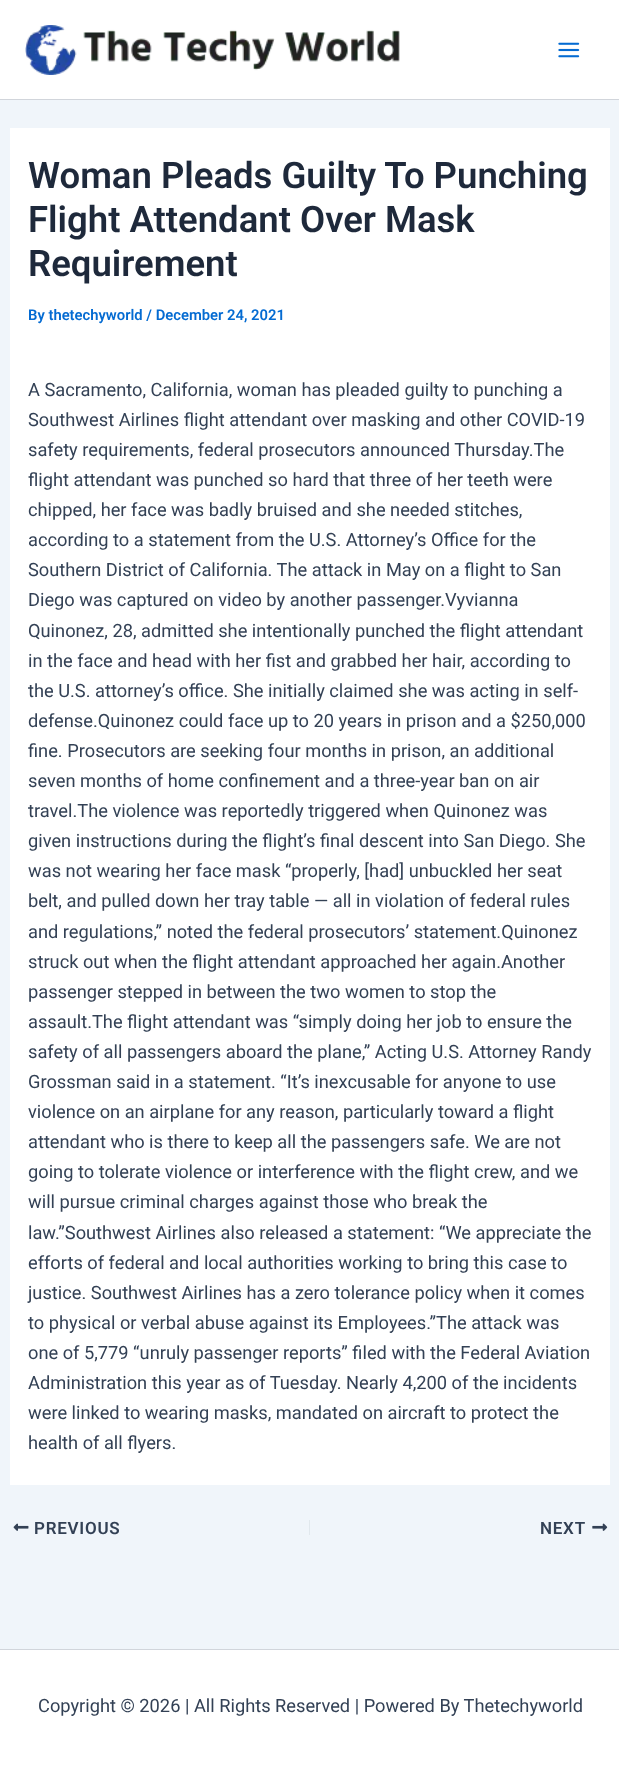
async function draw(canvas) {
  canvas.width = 619
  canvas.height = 1774
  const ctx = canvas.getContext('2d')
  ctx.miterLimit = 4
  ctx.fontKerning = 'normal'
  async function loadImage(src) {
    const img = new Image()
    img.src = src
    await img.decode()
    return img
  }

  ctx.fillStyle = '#f0f5fa'
  ctx.fillRect(0, 0, 619, 1774)
  ctx.fillStyle = '#fff'
  ctx.fillRect(0, 0, 619, 99)
  ctx.fillStyle = '#d1d5db'
  ctx.fillRect(0, 99, 619, 1)
  ctx.drawImage(await loadImage('image0.png'), 25, 25, 375, 50)
  ctx.drawImage(await loadImage('image1.png'), 558, 42, 22, 16)
  ctx.fillStyle = '#fff'
  ctx.fillRect(10, 128, 600, 1357)
  ctx.font = '600 36.5px Roboto'
  ctx.fillStyle = '#1e293b'
  ctx.fillText('Woman Pleads Guilty To Punching', 28, 188)
  ctx.fillText('Flight Attendant Over Mask', 28, 232)
  ctx.fillText('Requirement', 28, 276)
  ctx.font = '600 14.8px Roboto'
  ctx.fillStyle = '#046bd2'
  ctx.fillText('By thetechyworld / December 24, 2021', 28, 320)
  ctx.font = '18.25px Roboto'
  ctx.fillStyle = '#334155'
  ctx.fillText('A Sacramento, California, woman has pleaded guilty to punching a', 28, 396)
  ctx.fillText('Southwest Airlines flight attendant over masking and other COVID-19', 28, 426)
  ctx.fillText('safety requirements, federal prosecutors announced Thursday.The', 28, 456)
  ctx.fillText('flight attendant was punched so hard that three of her teeth were', 28, 486)
  ctx.fillText('chipped, her face was badly bruised and she needed stitches,', 28, 516)
  ctx.fillText('according to a statement from the U.S. Attorney’s Office for the', 28, 546)
  ctx.fillText('Southern District of California. The attack in May on a flight to San', 28, 576)
  ctx.fillText('Diego was captured on video by another passenger.Vyvianna', 28, 606)
  ctx.fillText('Quinonez, 28, admitted she intentionally punched the flight attendant', 28, 637)
  ctx.fillText('in the face and head with her fist and grabbed her hair, according to', 28, 667)
  ctx.fillText('the U.S. attorney’s office. She initially claimed she was acting in self-', 28, 697)
  ctx.fillText('defense.Quinonez could face up to 20 years in prison and a $250,000', 28, 727)
  ctx.fillText('fine. Prosecutors are seeking four months in prison, an additional', 28, 757)
  ctx.fillText('seven months of home confinement and a three-year ban on air', 28, 787)
  ctx.fillText('travel.The violence was reportedly triggered when Quinonez was', 28, 817)
  ctx.fillText('given instructions during the flight’s final descent into San Diego. She', 28, 847)
  ctx.fillText('was not wearing her face mask “properly, [had] unbuckled her seat', 28, 877)
  ctx.fillText('belt, and pulled down her tray table — all in violation of federal rules', 28, 907)
  ctx.fillText('and regulations,” noted the federal prosecutors’ statement.Quinonez', 28, 938)
  ctx.fillText('struck out when the flight attendant approached her again.Another', 28, 968)
  ctx.fillText('passenger stepped in between the two women to stop the', 28, 998)
  ctx.fillText('assault.The flight attendant was “simply doing her job to ensure the', 28, 1028)
  ctx.fillText('safety of all passengers aboard the plane,” Acting U.S. Attorney Randy', 28, 1058)
  ctx.fillText('Grossman said in a statement. “It’s inexcusable for anyone to use', 28, 1088)
  ctx.fillText('violence on an airplane for any reason, particularly toward a flight', 28, 1118)
  ctx.fillText('attendant who is there to keep all the passengers safe. We are not', 28, 1148)
  ctx.fillText('going to tolerate violence or interference with the flight crew, and we', 28, 1178)
  ctx.fillText('will pursue criminal charges against those who break the', 28, 1208)
  ctx.fillText('law.”Southwest Airlines also released a statement: “We appreciate the', 28, 1239)
  ctx.fillText('efforts of federal and local authorities working to bring this case to', 28, 1269)
  ctx.fillText('justice. Southwest Airlines has a zero tolerance policy when it comes', 28, 1299)
  ctx.fillText('to physical or verbal abuse against its Employees.”The attack was', 28, 1329)
  ctx.fillText('one of 5,779 “unruly passenger reports” filed with the Federal Aviation', 28, 1359)
  ctx.fillText('Administration this year as of Tuesday. Nearly 4,200 of the incidents', 28, 1389)
  ctx.fillText('were linked to wearing masks, mandated on aircraft to protect the', 28, 1419)
  ctx.fillText('health of all flyers.', 28, 1449)
  ctx.drawImage(await loadImage('image2.png'), 13, 1523, 16, 8)
  ctx.letterSpacing = '0.75px'
  ctx.font = '600 17px Roboto'
  ctx.fillText('PREVIOUS', 34, 1534)
  ctx.fillStyle = '#e1e8ed'
  ctx.fillRect(309, 1520, 1, 15)
  ctx.fillStyle = '#334155'
  ctx.fillText('NEXT', 540, 1534)
  ctx.drawImage(await loadImage('image3.png'), 592, 1523, 16, 8)
  ctx.fillStyle = '#fff'
  ctx.fillRect(0, 1650, 619, 124)
  ctx.fillStyle = '#d1d5db'
  ctx.fillRect(0, 1649, 619, 1)
  ctx.letterSpacing = '0px'
  ctx.font = '18.25px Roboto'
  ctx.fillStyle = '#334155'
  ctx.fillText('Copyright © 2026 | All Rights Reserved | Powered By Thetechyworld', 38, 1712)
}

draw(document.querySelector('canvas'))
